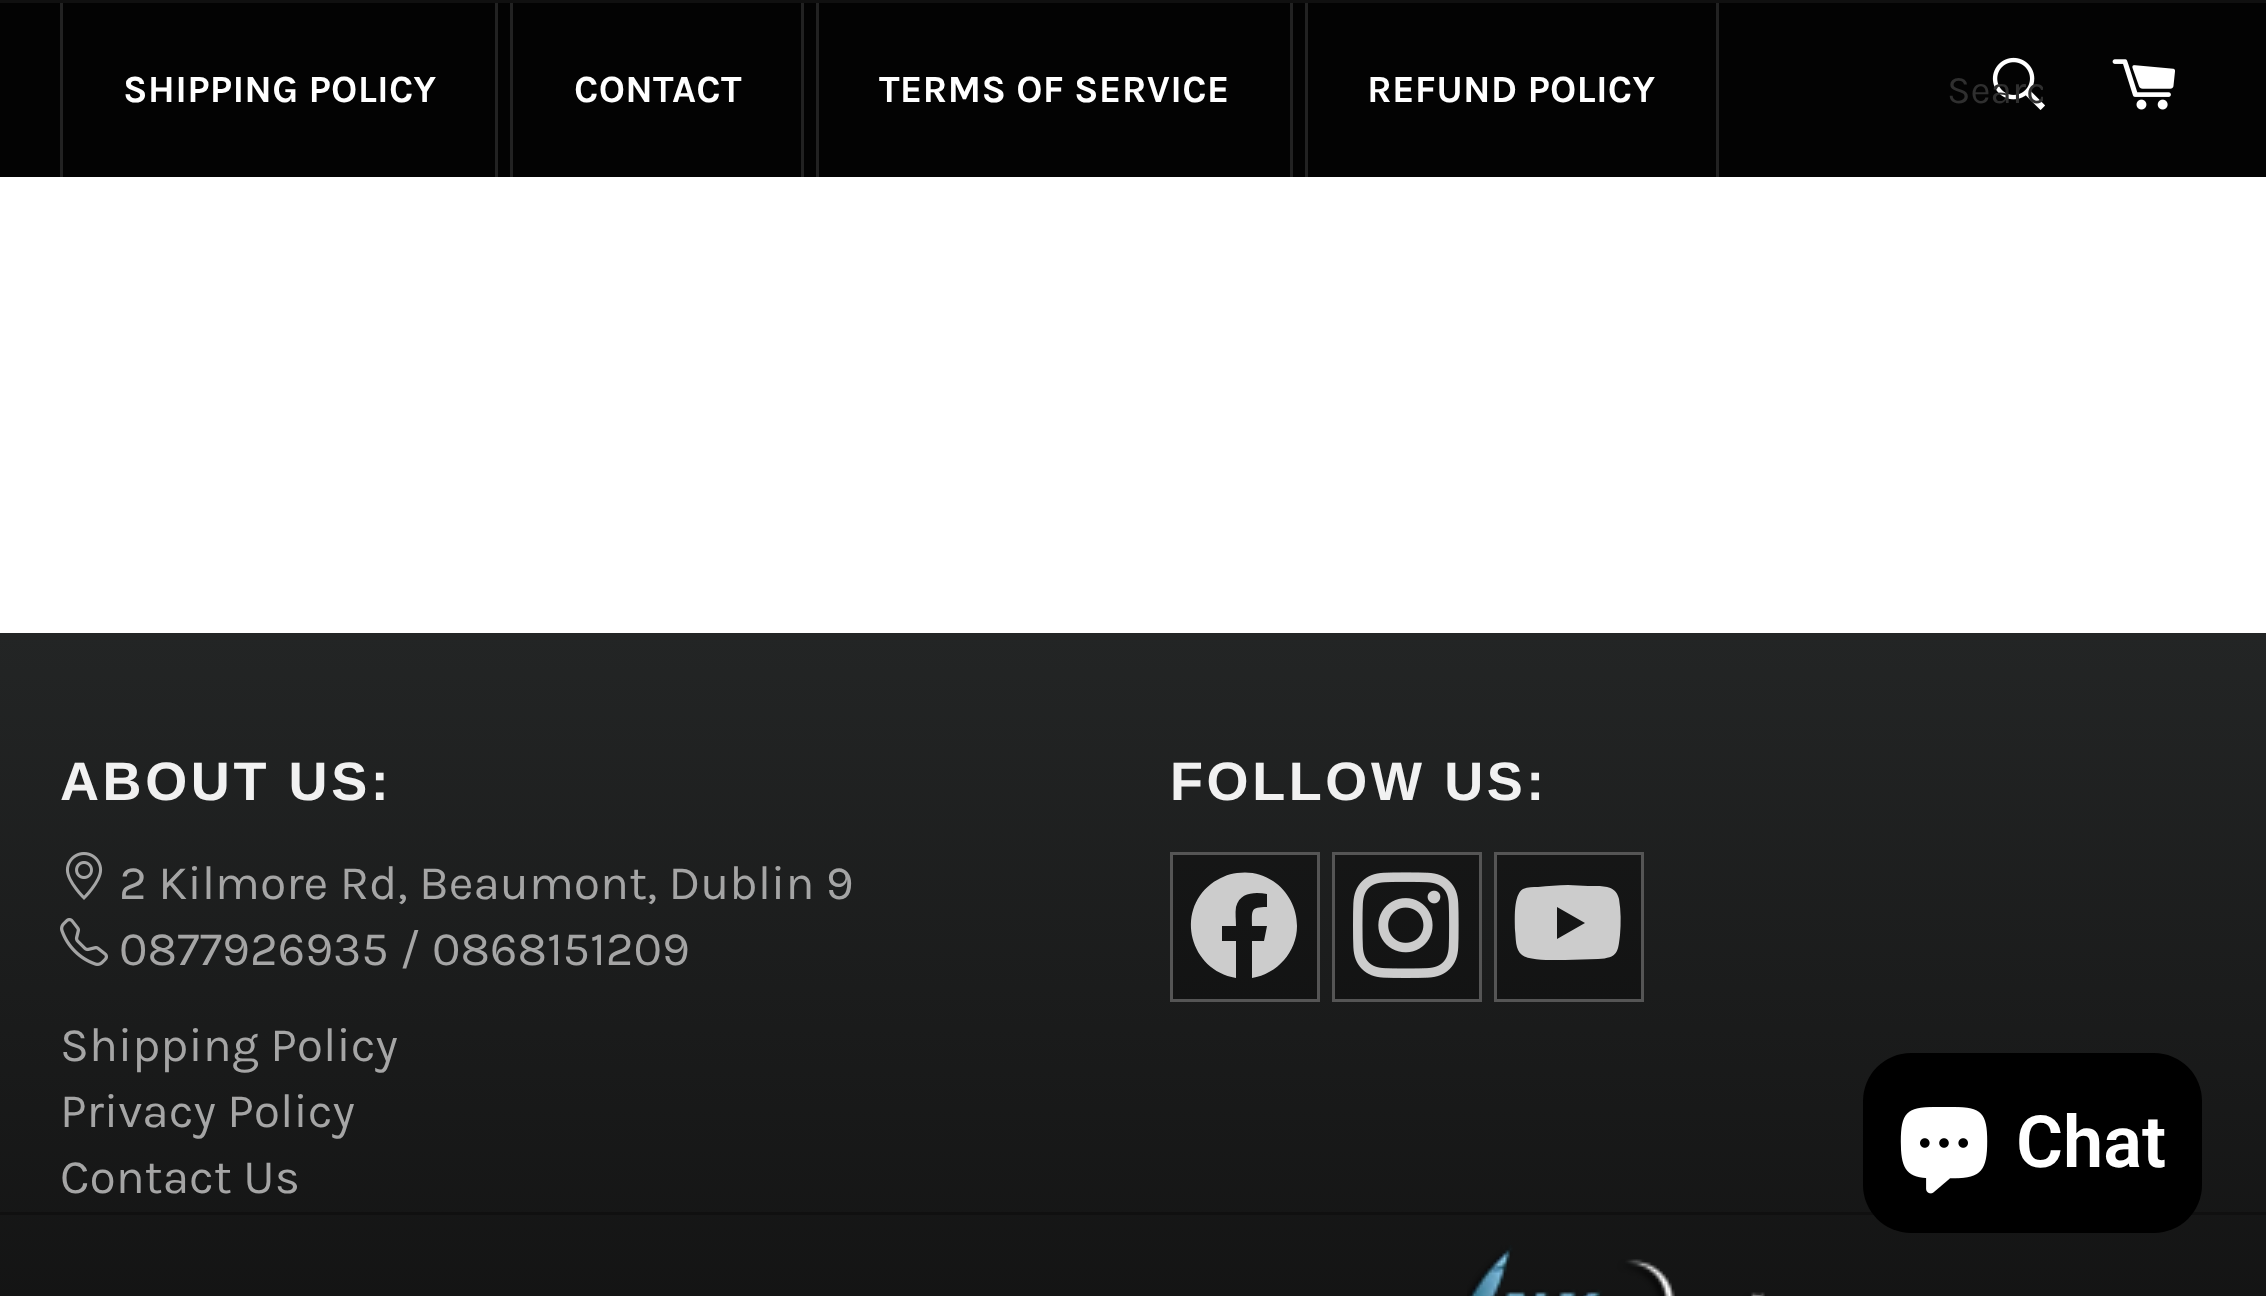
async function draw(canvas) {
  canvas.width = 2266
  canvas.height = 1296
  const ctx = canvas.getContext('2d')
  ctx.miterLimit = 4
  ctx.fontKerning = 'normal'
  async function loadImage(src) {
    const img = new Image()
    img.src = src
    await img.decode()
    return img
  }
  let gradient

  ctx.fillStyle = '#fff'
  ctx.fillRect(0, 0, 2266, 1296)
  ctx.fillStyle = '#030303'
  ctx.fillRect(0, 3, 2266, 174)
  ctx.fillStyle = '#101010'
  ctx.fillRect(0, 0, 2266, 3)
  ctx.fillStyle = '#222'
  ctx.fillRect(495, 3, 3, 174)
  ctx.fillRect(60, 3, 3, 174)
  ctx.letterSpacing = '0.25px'
  ctx.font = 'bold 38.5px Karla'
  ctx.fillStyle = '#fff'
  ctx.fillText('SHIPPING POLICY', 123, 102)
  ctx.fillStyle = '#222'
  ctx.fillRect(801, 3, 3, 174)
  ctx.fillRect(510, 3, 3, 174)
  ctx.fillStyle = '#fff'
  ctx.fillText('CONTACT', 574, 102)
  ctx.fillStyle = '#222'
  ctx.fillRect(1290, 3, 3, 174)
  ctx.fillRect(816, 3, 3, 174)
  ctx.fillStyle = '#fff'
  ctx.fillText('TERMS OF SERVICE', 879, 102)
  ctx.fillStyle = '#222'
  ctx.fillRect(1716, 3, 3, 174)
  ctx.fillRect(1305, 3, 3, 174)
  ctx.fillStyle = '#fff'
  ctx.fillText('REFUND POLICY', 1367, 102)
  ctx.drawImage(await loadImage('image0.png'), 1992, 57, 53, 53)
  ctx.save()
  ctx.beginPath()
  ctx.rect(1947, 66, 96, 45)
  ctx.clip()
  ctx.letterSpacing = '0px'
  ctx.font = '39px Karla'
  ctx.fillStyle = '#2f2f2f'
  ctx.fillText('Searc', 1947, 103)
  ctx.restore()
  ctx.drawImage(await loadImage('image1.png'), 2112, 59, 63, 51)
  gradient = ctx.createLinearGradient(1134, 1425, 1134, 633)
  gradient.addColorStop(0, '#111')
  gradient.addColorStop(1, '#232525')
  ctx.fillStyle = gradient
  ctx.fillRect(0, 633, 2266, 663)
  gradient = ctx.createLinearGradient(1134, 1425, 1134, 633)
  gradient.addColorStop(0, '#0c0c0c')
  gradient.addColorStop(1, '#191a1a')
  ctx.fillStyle = gradient
  ctx.fillRect(1497, 855, 144, 144)
  ctx.fillRect(1335, 855, 144, 144)
  ctx.fillRect(1173, 855, 144, 144)
  ctx.letterSpacing = '3.6px'
  ctx.font = 'bold 54px Liberation Sans'
  ctx.fillStyle = '#f1f1f1'
  ctx.fillText('ABOUT US:', 60, 800)
  ctx.drawImage(await loadImage('image2.png'), 65, 852, 38, 48)
  ctx.letterSpacing = '0px'
  ctx.font = '48px Karla'
  ctx.fillStyle = '#a5a5a5'
  ctx.fillText('2 Kilmore Rd, Beaumont, Dublin 9', 119, 899)
  ctx.drawImage(await loadImage('image3.png'), 60, 918, 48, 48)
  ctx.fillText('0877926935 / 0868151209', 119, 965)
  ctx.fillText('Shipping Policy', 60, 1061)
  ctx.fillText('Privacy Policy', 60, 1127)
  ctx.fillText('Contact Us', 60, 1193)
  ctx.letterSpacing = '3.6px'
  ctx.font = 'bold 54px Liberation Sans'
  ctx.fillStyle = '#f1f1f1'
  ctx.fillText('FOLLOW US:', 1170, 800)
  ctx.strokeStyle = '#555'
  ctx.lineWidth = 3
  ctx.strokeRect(1171.5, 853.5, 147, 147)
  ctx.fillStyle = '#ccc'
  ctx.beginPath()
  ctx.moveTo(1297, 926)
  ctx.bezierCurveTo(1297, 908, 1288, 891, 1273, 881)
  ctx.bezierCurveTo(1263, 874, 1250, 871, 1237, 873)
  ctx.bezierCurveTo(1228, 874, 1219, 878, 1211, 884)
  ctx.bezierCurveTo(1175, 912, 1190, 970, 1236, 978)
  ctx.lineTo(1236, 941)
  ctx.lineTo(1222, 941)
  ctx.lineTo(1222, 926)
  ctx.lineTo(1236, 926)
  ctx.bezierCurveTo(1236, 920, 1235, 913, 1236, 907)
  ctx.bezierCurveTo(1240, 892, 1255, 892, 1267, 894)
  ctx.lineTo(1267, 907)
  ctx.bezierCurveTo(1250, 907, 1252, 910, 1252, 926)
  ctx.lineTo(1267, 926)
  ctx.lineTo(1264, 941)
  ctx.lineTo(1252, 941)
  ctx.lineTo(1252, 978)
  ctx.bezierCurveTo(1277, 974, 1297, 952, 1297, 926)
  ctx.closePath()
  ctx.fill()
  ctx.strokeRect(1333.5, 853.5, 147, 147)
  ctx.drawImage(await loadImage('image4.png'), 1353, 872, 106, 106)
  ctx.strokeRect(1495.5, 853.5, 147, 147)
  ctx.beginPath()
  ctx.moveTo(1568, 885)
  ctx.lineTo(1588, 886)
  ctx.bezierCurveTo(1600, 886, 1616, 884, 1619, 899)
  ctx.bezierCurveTo(1621, 911, 1621, 923, 1620, 935)
  ctx.bezierCurveTo(1618, 952, 1618, 958, 1598, 959)
  ctx.lineTo(1565, 960)
  ctx.bezierCurveTo(1556, 960, 1529, 961, 1522, 955)
  ctx.bezierCurveTo(1515, 950, 1516, 938, 1515, 930)
  ctx.bezierCurveTo(1515, 920, 1513, 895, 1523, 889)
  ctx.bezierCurveTo(1528, 887, 1533, 887, 1538, 887)
  ctx.bezierCurveTo(1548, 886, 1558, 885, 1568, 885)
  ctx.closePath()
  ctx.moveTo(1557, 907)
  ctx.lineTo(1557, 939)
  ctx.lineTo(1585, 923)
  ctx.closePath()
  ctx.fill()
  ctx.fillStyle = '#101010'
  ctx.fillRect(0, 1212, 2266, 3)
  ctx.drawImage(await loadImage('image5.png'), 1467, 1245, 298, 51)
  ctx.fillStyle = '#000'
  ctx.beginPath()
  ctx.roundRect(1863, 1053, 339, 180, 48)
  ctx.fill()
  ctx.drawImage(await loadImage('image6.png'), 1900, 1107, 88, 87)
  ctx.letterSpacing = '0px'
  ctx.font = '600 72px Roboto'
  ctx.fillStyle = '#fff'
  ctx.fillText('Chat', 2016, 1167)
}

draw(document.querySelector('canvas'))
